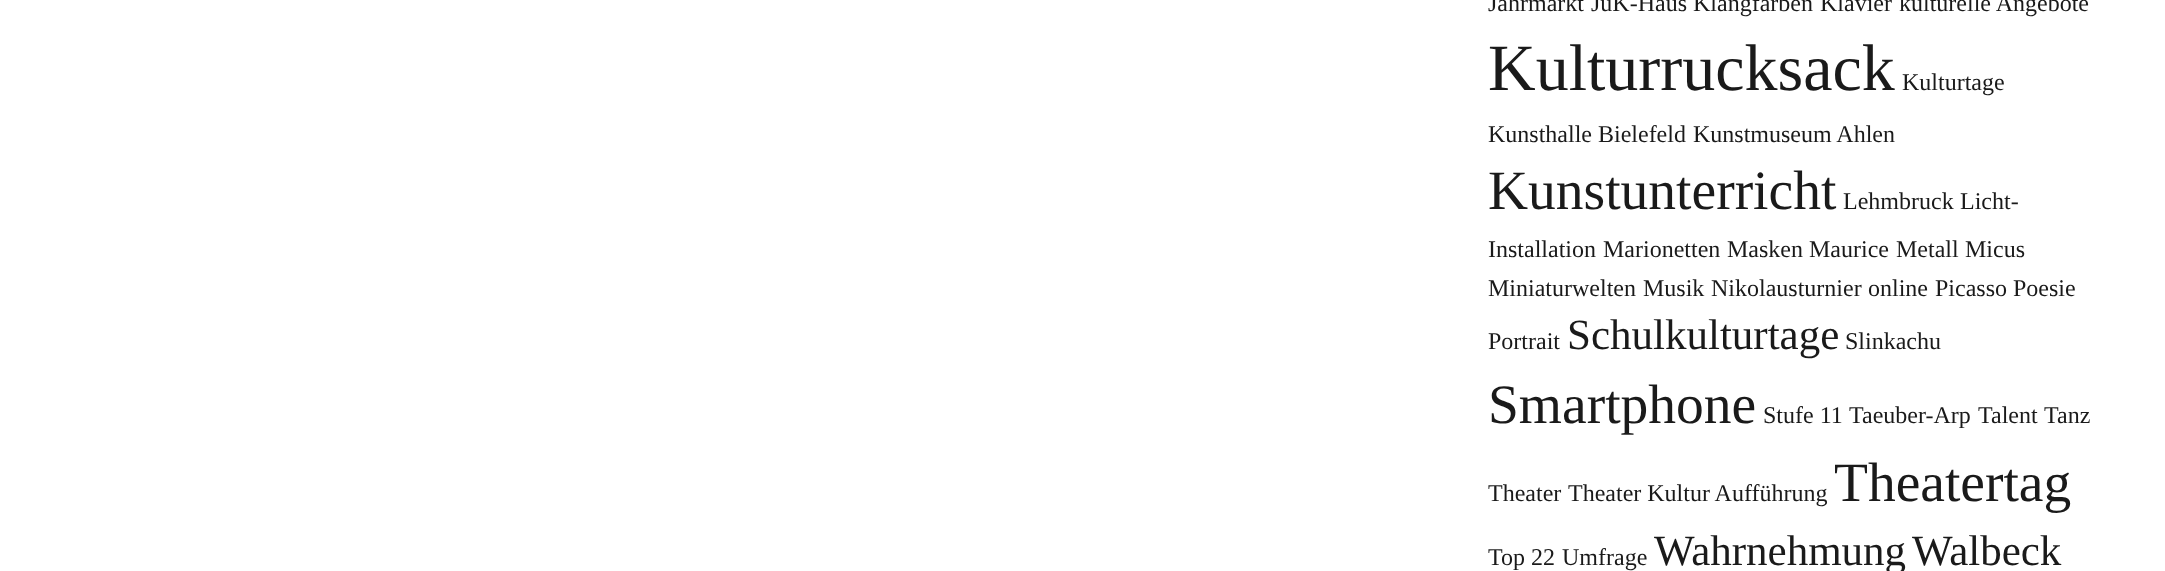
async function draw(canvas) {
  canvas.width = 2165
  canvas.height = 571
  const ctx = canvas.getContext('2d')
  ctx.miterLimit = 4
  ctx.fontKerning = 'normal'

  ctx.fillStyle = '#fff'
  ctx.fillRect(0, 0, 2165, 571)
  ctx.font = '24px Liberation Serif'
  ctx.fillStyle = '#1a1a1a'
  ctx.fillText('Jahrmarkt', 1488, 11)
  ctx.fillText('JuK-Haus', 1591, 11)
  ctx.fillText('Klangfarben', 1693, 11)
  ctx.fillText('Klavier', 1820, 11)
  ctx.fillText('kulturelle Angebote', 1899, 11)
  ctx.font = '66px Liberation Serif'
  ctx.fillText('Kulturrucksack', 1488, 90)
  ctx.font = '24px Liberation Serif'
  ctx.fillText('Kulturtage', 1902, 90)
  ctx.fillText('Kunsthalle Bielefeld', 1488, 142)
  ctx.fillText('Kunstmuseum Ahlen', 1693, 142)
  ctx.font = '55.5px Liberation Serif'
  ctx.fillText('Kunstunterricht', 1488, 209)
  ctx.font = '24px Liberation Serif'
  ctx.fillText('Lehmbruck', 1843, 209)
  ctx.fillText('Licht-', 1960, 209)
  ctx.fillText('Installation', 1488, 257)
  ctx.fillText('Marionetten', 1603, 257)
  ctx.fillText('Masken', 1727, 257)
  ctx.fillText('Maurice', 1809, 257)
  ctx.fillText('Metall', 1896, 257)
  ctx.fillText('Micus', 1965, 257)
  ctx.fillText('Miniaturwelten', 1488, 296)
  ctx.fillText('Musik', 1643, 296)
  ctx.fillText('Nikolausturnier', 1711, 296)
  ctx.fillText('online', 1868, 296)
  ctx.fillText('Picasso', 1935, 296)
  ctx.fillText('Poesie', 2013, 296)
  ctx.fillText('Portrait', 1488, 349)
  ctx.font = '43px Liberation Serif'
  ctx.fillText('Schulkulturtage', 1567, 349)
  ctx.font = '24px Liberation Serif'
  ctx.fillText('Slinkachu', 1845, 349)
  ctx.font = '55.5px Liberation Serif'
  ctx.fillText('Smartphone', 1488, 423)
  ctx.font = '24px Liberation Serif'
  ctx.fillText('Stufe 11', 1763, 423)
  ctx.fillText('Taeuber-Arp', 1849, 423)
  ctx.fillText('Talent', 1978, 423)
  ctx.fillText('Tanz', 2044, 423)
  ctx.fillText('Theater', 1488, 501)
  ctx.fillText('Theater Kultur Aufführung', 1568, 501)
  ctx.font = '55.5px Liberation Serif'
  ctx.fillText('Theatertag', 1834, 501)
  ctx.font = '24px Liberation Serif'
  ctx.fillText('Top 22', 1488, 565)
  ctx.fillText('Umfrage', 1562, 565)
  ctx.font = '43px Liberation Serif'
  ctx.fillText('Wahrnehmung', 1654, 565)
  ctx.fillText('Walbeck', 1912, 565)
}

draw(document.querySelector('canvas'))
